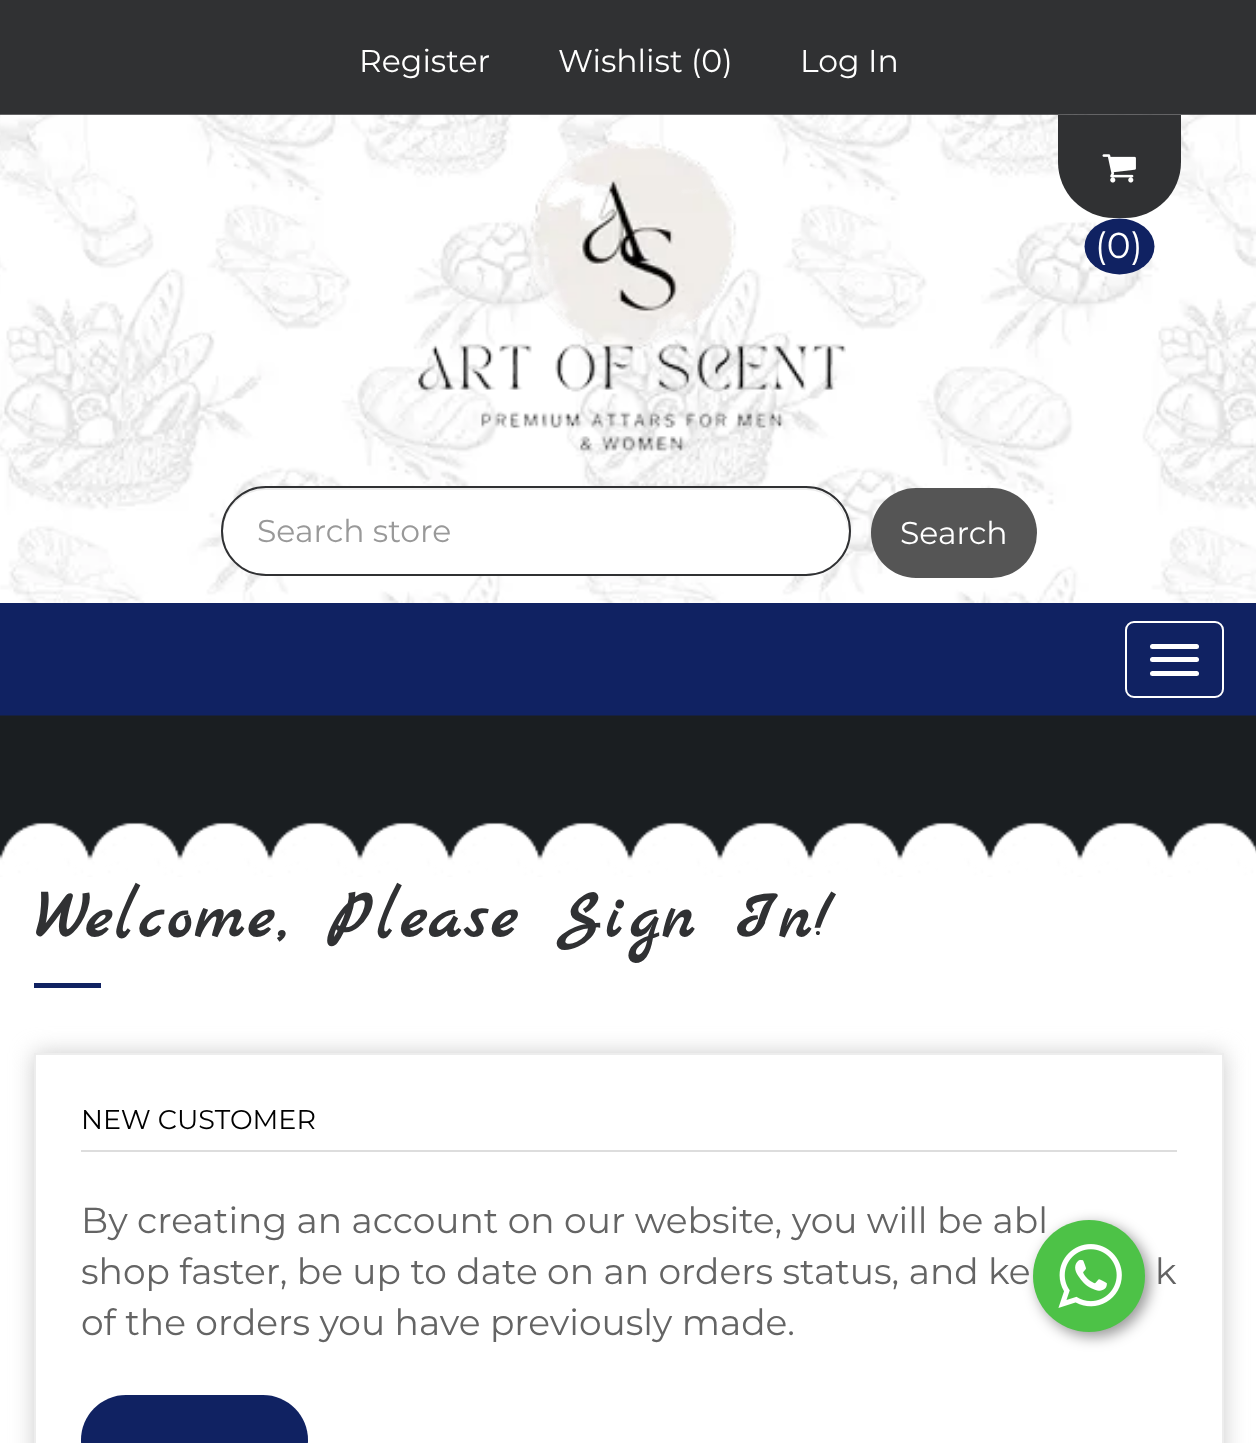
async function draw(canvas) {
  canvas.width = 1256
  canvas.height = 1443
  const ctx = canvas.getContext('2d')
  ctx.miterLimit = 4
  ctx.fontKerning = 'normal'
  async function loadImage(src) {
    const img = new Image()
    img.src = src
    await img.decode()
    return img
  }

  ctx.fillStyle = '#fff'
  ctx.fillRect(0, 0, 1256, 1443)
  ctx.fillStyle = '#303133'
  ctx.fillRect(0, 0, 1256, 115)
  ctx.font = '31.5px Montserrat'
  ctx.fillStyle = '#fff'
  ctx.fillText('Register', 359, 72)
  ctx.fillText('Wishlist (0)', 558, 72)
  ctx.fillText('Log In', 800, 72)
  ctx.drawImage(await loadImage('image0.png'), 0, 114, 1256, 489)
  ctx.fillStyle = '#303133'
  ctx.beginPath()
  ctx.roundRect(1058, 115, 123, 103, [0, 0, 56, 56])
  ctx.fill()
  ctx.drawImage(await loadImage('image1.png'), 1102, 154, 34, 29)
  ctx.fillStyle = '#102262'
  ctx.beginPath()
  ctx.ellipse(1119.5, 246.5, 35, 28, 0, 0, 2 * Math.PI)
  ctx.fill()
  ctx.font = '36px Montserrat'
  ctx.fillStyle = '#fff'
  ctx.fillText('(0)', 1095, 258)
  ctx.drawImage(await loadImage('image2.png'), 418, 140, 428, 313)
  ctx.beginPath()
  ctx.roundRect(221, 486, 630, 90, 45)
  ctx.fill()
  ctx.fillStyle = '#ececec'
  ctx.beginPath()
  ctx.moveTo(266, 490)
  ctx.lineTo(806, 490)
  ctx.bezierCurveTo(829, 490, 847, 509, 848, 532)
  ctx.bezierCurveTo(849, 508, 829, 488, 805, 488)
  ctx.lineTo(266, 488)
  ctx.bezierCurveTo(242, 488, 222, 508, 223, 532)
  ctx.bezierCurveTo(224, 509, 242, 490, 266, 490)
  ctx.closePath()
  ctx.fill()
  ctx.beginPath()
  ctx.roundRect(222, 487, 628, 88, 44)
  ctx.strokeStyle = '#303133'
  ctx.lineWidth = 2
  ctx.stroke()
  ctx.font = '31.5px Montserrat'
  ctx.fillStyle = '#999'
  ctx.fillText('Search store', 257, 542)
  ctx.fillStyle = '#555'
  ctx.beginPath()
  ctx.roundRect(871, 488, 166, 90, 45)
  ctx.fill()
  ctx.fillStyle = '#fff'
  ctx.fillText('Search', 900, 544)
  ctx.fillStyle = '#102262'
  ctx.fillRect(0, 603, 1256, 113)
  ctx.beginPath()
  ctx.roundRect(1126, 622, 97, 75, 8)
  ctx.strokeStyle = '#fff'
  ctx.stroke()
  ctx.fillStyle = '#fff'
  ctx.beginPath()
  ctx.roundRect(1150, 644, 49, 5, 2.5)
  ctx.fill()
  ctx.beginPath()
  ctx.roundRect(1150, 657, 49, 5, 2.5)
  ctx.fill()
  ctx.beginPath()
  ctx.roundRect(1150, 671, 49, 5, 2.5)
  ctx.fill()
  ctx.drawImage(await loadImage('image3.png'), 0, 715, 1256, 162)
  ctx.letterSpacing = '4.5px'
  ctx.font = 'bold 67.5px Marck Script'
  ctx.fillStyle = '#303133'
  ctx.fillText('Welcome, Please Sign In!', 34, 937)
  ctx.fillStyle = '#102262'
  ctx.fillRect(34, 983, 67, 5)
  ctx.save()
  ctx.beginPath()
  ctx.moveTo(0, 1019)
  ctx.lineTo(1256, 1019)
  ctx.lineTo(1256, 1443)
  ctx.lineTo(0, 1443)
  ctx.closePath()
  ctx.moveTo(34, 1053)
  ctx.lineTo(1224, 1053)
  ctx.lineTo(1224, 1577)
  ctx.lineTo(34, 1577)
  ctx.closePath()
  ctx.clip('evenodd')
  ctx.fillStyle = '#ccc'
  ctx.filter = 'blur(11px)'
  ctx.beginPath()
  ctx.rect(34, 1053, 1190, 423)
  ctx.fill()
  ctx.filter = 'none'
  ctx.restore()
  ctx.strokeStyle = '#ededed'
  ctx.strokeRect(35, 1054, 1188, 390)
  ctx.fillStyle = '#ddd'
  ctx.fillRect(81, 1150, 1096, 2)
  ctx.letterSpacing = '0px'
  ctx.font = '27px Montserrat'
  ctx.fillStyle = '#000'
  ctx.fillText('NEW CUSTOMER', 81, 1129)
  ctx.font = '36px Montserrat'
  ctx.fillStyle = '#646464'
  ctx.fillText('By creating an account on our website, you will be abl', 81, 1233)
  ctx.fillText('shop faster, be up to date on an orders status, and ke', 81, 1284)
  ctx.fillText('k', 1155, 1284)
  ctx.fillText('of the orders you have previously made.', 81, 1335)
  ctx.fillStyle = '#102262'
  ctx.beginPath()
  ctx.roundRect(81, 1395, 227, 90, 45)
  ctx.fill()
  ctx.fillStyle = '#00000066'
  ctx.filter = 'blur(7px)'
  ctx.beginPath()
  ctx.roundRect(1037, 1224, 113, 113, 56.5)
  ctx.fill()
  ctx.filter = 'none'
  ctx.fillStyle = '#4dc247'
  ctx.beginPath()
  ctx.arc(1089, 1276, 56, 0, 2 * Math.PI)
  ctx.fill()
  ctx.drawImage(await loadImage('image4.png'), 1058, 1244, 64, 64)
}

draw(document.querySelector('canvas'))
